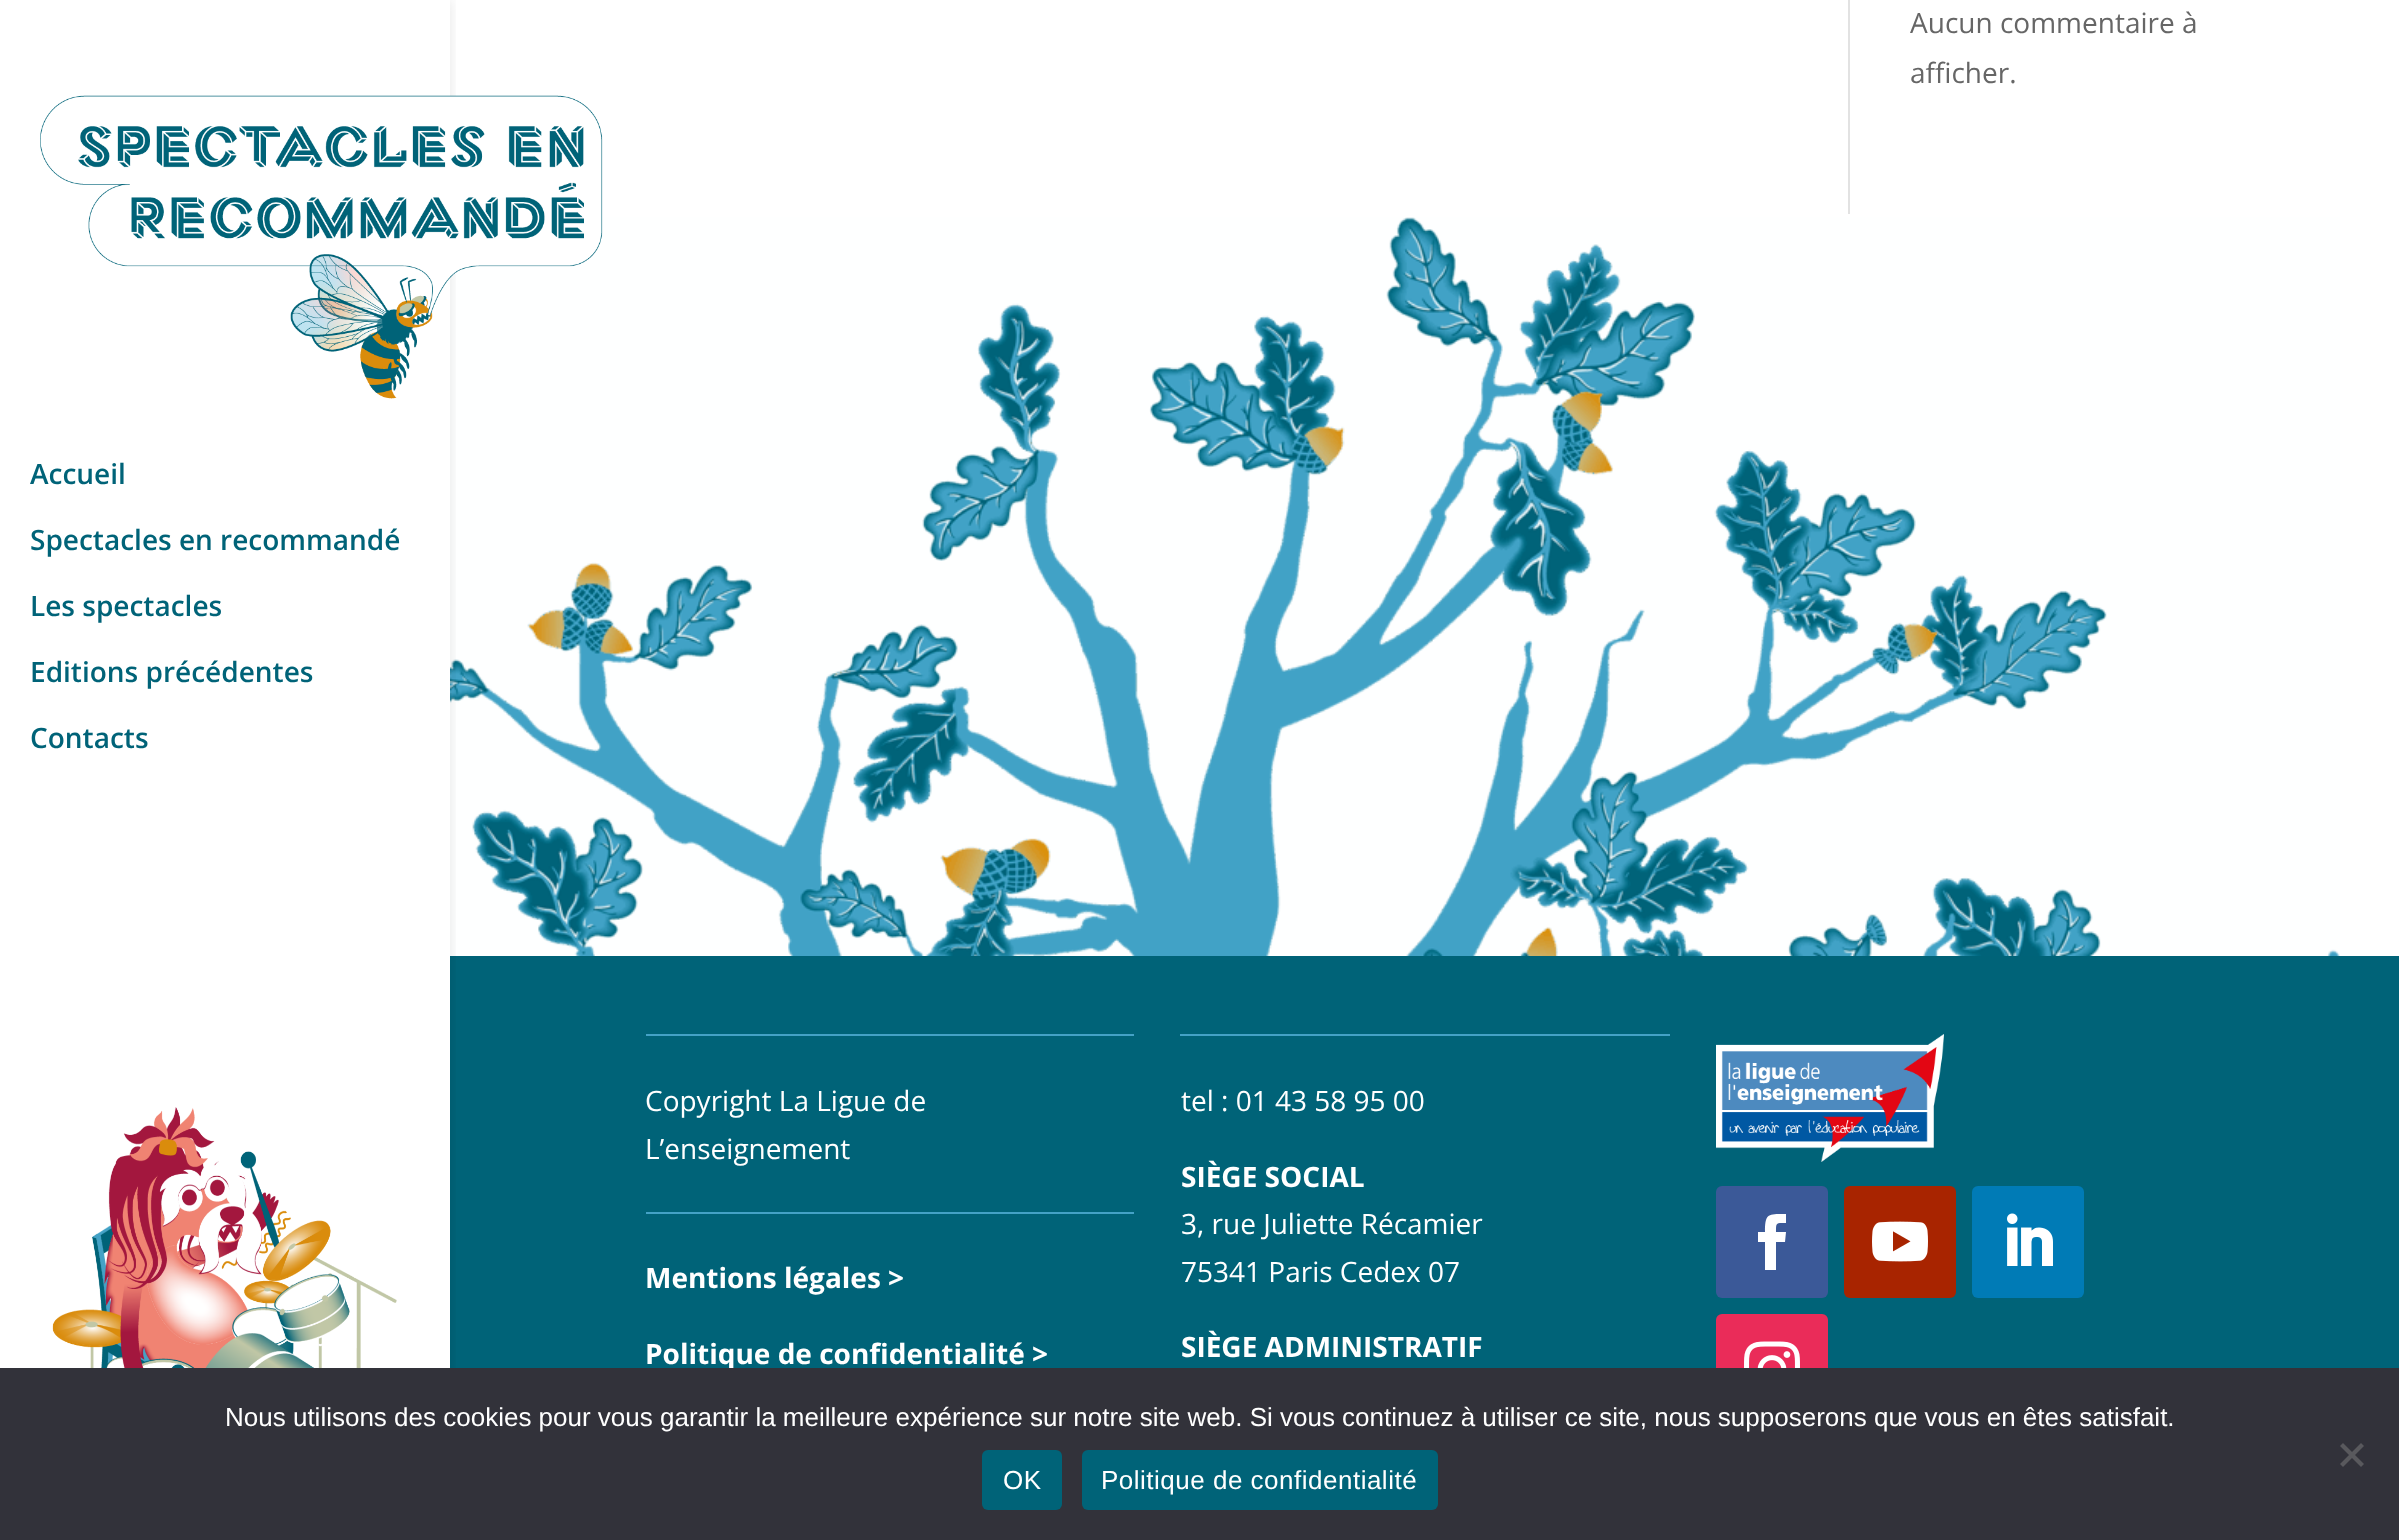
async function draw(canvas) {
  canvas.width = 2399
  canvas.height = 1540
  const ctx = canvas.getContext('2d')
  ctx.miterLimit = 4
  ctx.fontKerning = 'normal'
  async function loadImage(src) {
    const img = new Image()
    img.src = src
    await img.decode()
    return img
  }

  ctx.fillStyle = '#fff'
  ctx.fillRect(0, 0, 2399, 1540)
  ctx.drawImage(await loadImage('image2.png'), 450, 217, 1890, 739)
  ctx.fillStyle = '#006378'
  ctx.fillRect(450, 956, 1949, 412)
  ctx.save()
  ctx.beginPath()
  ctx.rect(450, 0, 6, 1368)
  ctx.clip()
  ctx.fillStyle = '#0000001a'
  ctx.filter = 'blur(7px)'
  ctx.beginPath()
  ctx.rect(0, 0, 450, 1540)
  ctx.fill()
  ctx.filter = 'none'
  ctx.restore()
  ctx.drawImage(await loadImage('image0.png'), 52, 1107, 345, 261)
  ctx.drawImage(await loadImage('image1.png'), 40, 95, 563, 304)
  ctx.font = '600 28px Open Sans'
  ctx.fillText('Accueil', 30, 484)
  ctx.fillText('Spectacles en recommandé', 30, 550)
  ctx.fillText('Les spectacles', 30, 616)
  ctx.fillText('Editions précédentes', 30, 682)
  ctx.fillText('Contacts', 30, 748)
  ctx.fillStyle = '#e2e2e2'
  ctx.fillRect(1848, 0, 2, 214)
  ctx.font = '28px Open Sans'
  ctx.fillStyle = '#666'
  ctx.fillText('Aucun commentaire à', 1910, 33)
  ctx.fillText('afficher.', 1910, 83)
  ctx.fillStyle = '#44a2c6'
  ctx.fillRect(646, 1034, 488, 2)
  ctx.fillRect(646, 1212, 488, 2)
  ctx.fillStyle = '#fff'
  ctx.fillText('Copyright La Ligue de', 645, 1111)
  ctx.fillText('L’enseignement', 645, 1159)
  ctx.font = 'bold 28px Open Sans'
  ctx.fillText('Mentions légales >', 645, 1288)
  ctx.fillText('Politique de confidentialité >', 645, 1364)
  ctx.fillStyle = '#44a2c6'
  ctx.fillRect(1180, 1034, 490, 2)
  ctx.font = '28px Open Sans'
  ctx.fillStyle = '#fff'
  ctx.fillText('tel : 01 43 58 95 00', 1181, 1111)
  ctx.font = 'bold 28px Open Sans'
  ctx.fillText('SIÈGE SOCIAL', 1181, 1187)
  ctx.font = '28px Open Sans'
  ctx.fillText('3, rue Juliette Récamier', 1181, 1234)
  ctx.fillText('75341 Paris Cedex 07', 1181, 1282)
  ctx.font = 'bold 28px Open Sans'
  ctx.fillText('SIÈGE ADMINISTRATIF', 1181, 1357)
  ctx.drawImage(await loadImage('image3.png'), 1716, 1034, 228, 128)
  ctx.fillStyle = '#3b5998'
  ctx.beginPath()
  ctx.roundRect(1716, 1186, 112, 112, 6)
  ctx.fill()
  ctx.fillStyle = '#fff'
  ctx.beginPath()
  ctx.moveTo(1765, 1270)
  ctx.lineTo(1776, 1270)
  ctx.lineTo(1776, 1242)
  ctx.lineTo(1785, 1242)
  ctx.lineTo(1786, 1232)
  ctx.lineTo(1776, 1232)
  ctx.bezierCurveTo(1776, 1222, 1776, 1223, 1786, 1223)
  ctx.lineTo(1786, 1214)
  ctx.bezierCurveTo(1768, 1214, 1765, 1213, 1765, 1232)
  ctx.lineTo(1758, 1232)
  ctx.lineTo(1758, 1242)
  ctx.lineTo(1765, 1242)
  ctx.closePath()
  ctx.fill()
  ctx.fillStyle = '#a82400'
  ctx.beginPath()
  ctx.roundRect(1844, 1186, 112, 112, 6)
  ctx.fill()
  ctx.drawImage(await loadImage('image4.png'), 1872, 1221, 56, 41)
  ctx.fillStyle = '#007bb6'
  ctx.beginPath()
  ctx.roundRect(1972, 1186, 112, 112, 6)
  ctx.fill()
  ctx.drawImage(await loadImage('image5.png'), 2007, 1213, 46, 53)
  ctx.fillStyle = '#ea2c59'
  ctx.beginPath()
  ctx.roundRect(1716, 1314, 112, 112, 6)
  ctx.fill()
  ctx.drawImage(await loadImage('image6.png'), 1744, 1341, 56, 27)
  ctx.fillStyle = '#32323a'
  ctx.fillRect(0, 1368, 2399, 172)
  ctx.font = '26px Liberation Sans'
  ctx.fillStyle = '#fff'
  ctx.fillText('Nous utilisons des cookies pour vous garantir la meilleure expérience sur notre site web. Si vous continuez à utiliser ce site, nous supposerons que vous en êtes satisfait.', 225, 1426)
  ctx.fillStyle = '#59595d'
  ctx.beginPath()
  ctx.moveTo(2361, 1443)
  ctx.lineTo(2364, 1446)
  ctx.lineTo(2343, 1467)
  ctx.lineTo(2340, 1464)
  ctx.closePath()
  ctx.fill()
  ctx.beginPath()
  ctx.moveTo(2340, 1446)
  ctx.lineTo(2343, 1443)
  ctx.lineTo(2364, 1464)
  ctx.lineTo(2361, 1467)
  ctx.closePath()
  ctx.fill()
  ctx.fillStyle = '#006378'
  ctx.beginPath()
  ctx.roundRect(982, 1450, 80, 60, 6)
  ctx.fill()
  ctx.letterSpacing = '0.5px'
  ctx.fillStyle = '#fff'
  ctx.fillText('OK', 1003, 1489)
  ctx.fillStyle = '#006378'
  ctx.beginPath()
  ctx.roundRect(1082, 1450, 356, 60, 6)
  ctx.fill()
  ctx.fillStyle = '#fff'
  ctx.fillText('Politique de confidentialité', 1101, 1489)
}

draw(document.querySelector('canvas'))
